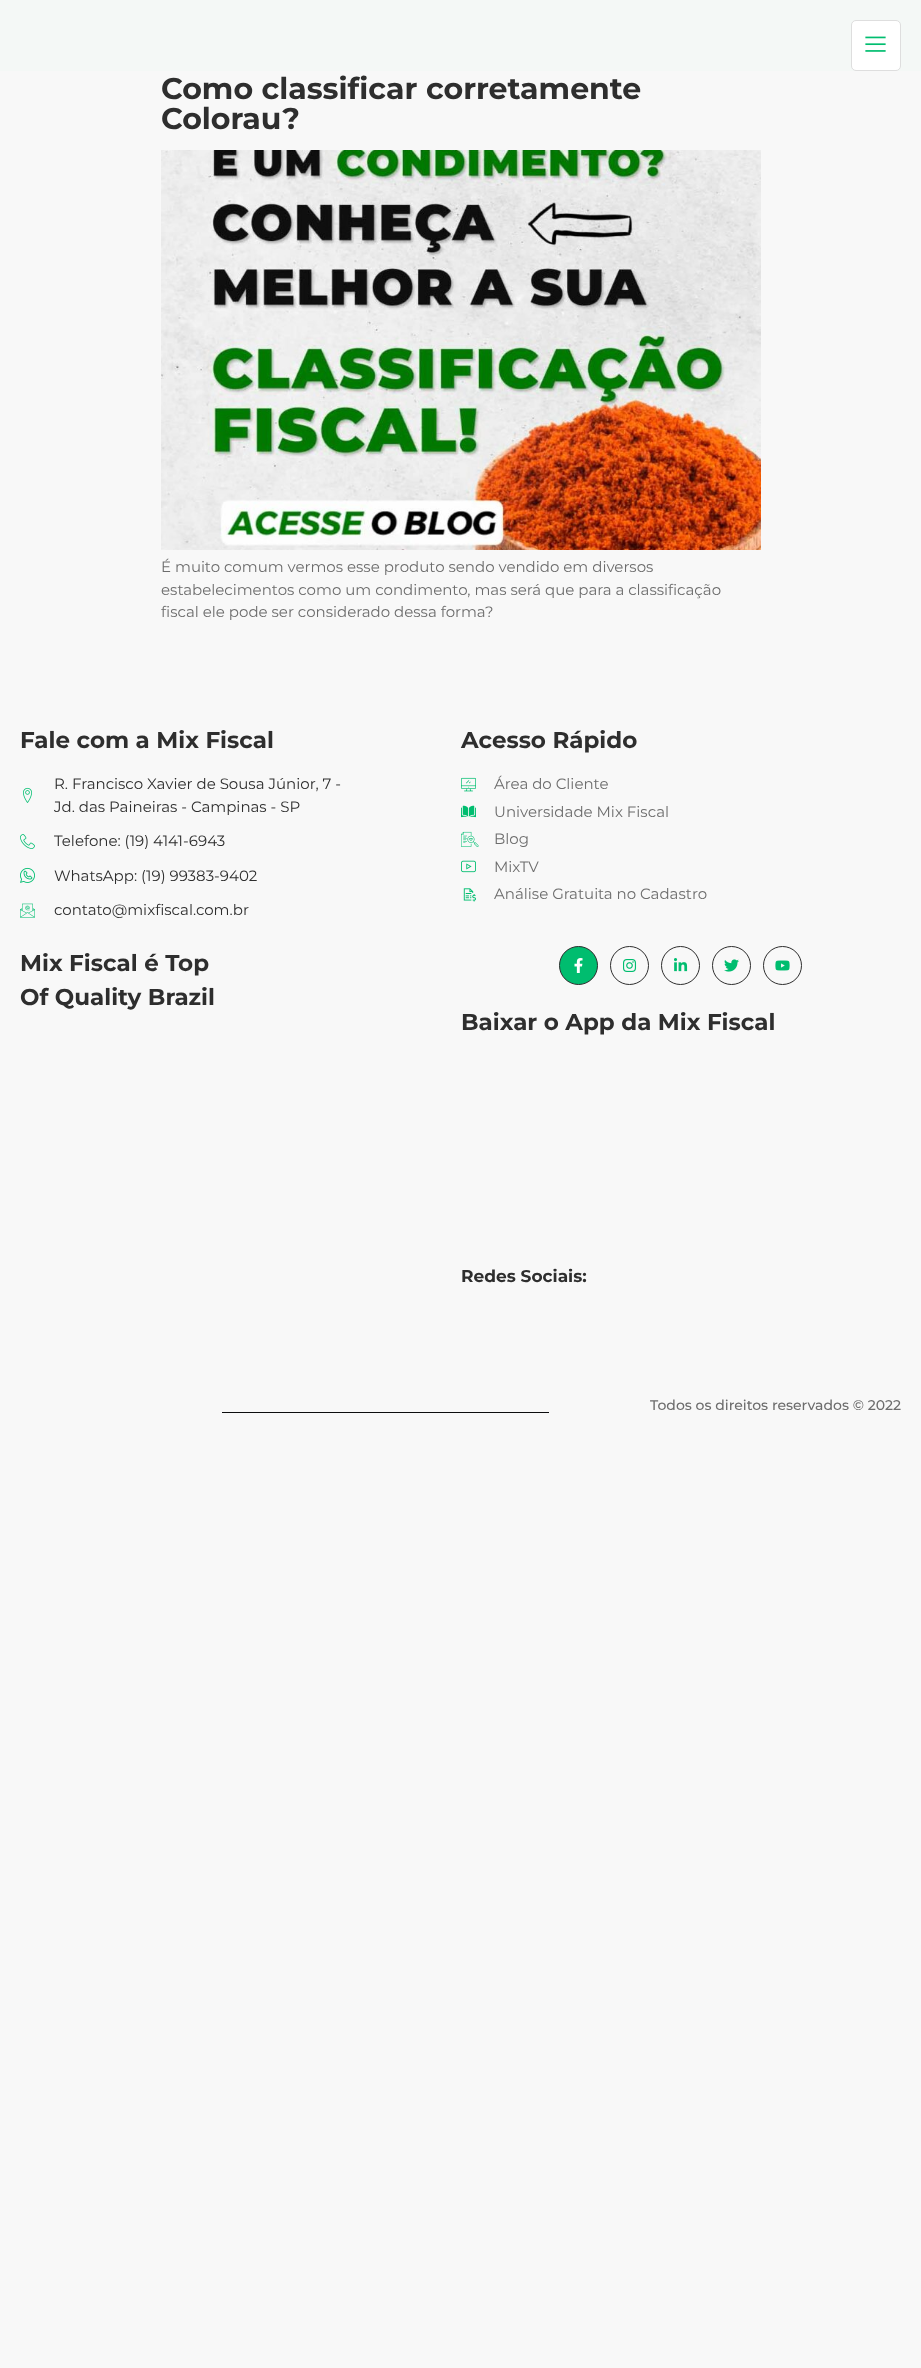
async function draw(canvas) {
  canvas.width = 921
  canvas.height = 2368
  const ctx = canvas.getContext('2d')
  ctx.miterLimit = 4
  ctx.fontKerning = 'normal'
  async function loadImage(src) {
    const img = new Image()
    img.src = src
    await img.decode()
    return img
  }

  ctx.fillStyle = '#f8f8f8'
  ctx.fillRect(0, 0, 921, 2368)
  ctx.fillStyle = '#f4f8f6'
  ctx.fillRect(0, 0, 921, 71)
  ctx.fillStyle = '#fff'
  ctx.beginPath()
  ctx.roundRect(851.5, 20.5, 49, 50, 4.5)
  ctx.fill()
  ctx.strokeStyle = '#dedede'
  ctx.stroke()
  ctx.drawImage(await loadImage('image0.png'), 865, 36, 21, 16)
  ctx.font = 'bold 30px Montserrat'
  ctx.fillStyle = '#2e2e2e'
  ctx.fillText('Como classificar corretamente', 161, 99)
  ctx.fillText('Colorau?', 161, 129)
  ctx.drawImage(await loadImage('image1.png'), 161, 150, 600, 400)
  ctx.font = '15px Montserrat'
  ctx.fillStyle = '#6d6d6d'
  ctx.fillText('É muito comum vermos esse produto sendo vendido em diversos', 161, 572)
  ctx.fillText('estabelecimentos como um condimento, mas será que para a classificação', 161, 595)
  ctx.fillText('fiscal ele pode ser considerado dessa forma?', 161, 617)
  ctx.font = 'bold 23px Montserrat'
  ctx.fillStyle = '#2e2e2e'
  ctx.fillText('Fale com a Mix Fiscal', 20, 748)
  ctx.drawImage(await loadImage('image2.png'), 23, 787, 9, 16)
  ctx.font = '15px Montserrat'
  ctx.fillText('R. Francisco Xavier de Sousa Júnior, 7 -', 54, 789)
  ctx.fillText('Jd. das Paineiras - Campinas - SP', 54, 812)
  ctx.drawImage(await loadImage('image3.png'), 20, 834, 15, 15)
  ctx.fillText('Telefone: (19) 4141-6943', 54, 846)
  ctx.drawImage(await loadImage('image4.png'), 20, 867, 15, 16)
  ctx.fillText('WhatsApp: (19) 99383-9402', 54, 881)
  ctx.drawImage(await loadImage('image5.png'), 20, 903, 15, 15)
  ctx.fillText('contato@mixfiscal.com.br', 54, 915)
  ctx.font = 'bold 23px Montserrat'
  ctx.fillText('Acesso Rápido', 461, 748)
  ctx.drawImage(await loadImage('image6.png'), 461, 777, 15, 15)
  ctx.font = '15px Montserrat'
  ctx.fillStyle = '#6d6d6d'
  ctx.fillText('Área do Cliente', 494, 789)
  ctx.drawImage(await loadImage('image7.png'), 461, 805, 15, 13)
  ctx.fillText('Universidade Mix Fiscal', 494, 817)
  ctx.drawImage(await loadImage('image8.png'), 461, 831, 18, 16)
  ctx.fillText('Blog', 494, 844)
  ctx.drawImage(await loadImage('image9.png'), 461, 860, 15, 13)
  ctx.fillText('MixTV', 494, 872)
  ctx.drawImage(await loadImage('image10.png'), 463, 888, 13, 14)
  ctx.fillText('Análise Gratuita no Cadastro', 494, 899)
  ctx.font = 'bold 23px Montserrat'
  ctx.fillStyle = '#2e2e2e'
  ctx.fillText('Mix Fiscal é Top', 20, 971)
  ctx.fillText('Of Quality Brazil', 20, 1005)
  ctx.fillStyle = '#00bd6f'
  ctx.beginPath()
  ctx.arc(578.5, 965.5, 19, 0, 2 * Math.PI)
  ctx.fill()
  ctx.strokeStyle = '#2e2e2e'
  ctx.stroke()
  ctx.drawImage(await loadImage('image11.png'), 574, 958, 9, 15)
  ctx.beginPath()
  ctx.arc(629.5, 965.5, 19, 0, 2 * Math.PI)
  ctx.stroke()
  ctx.drawImage(await loadImage('image12.png'), 623, 959, 14, 13)
  ctx.beginPath()
  ctx.arc(680.5, 965.5, 19, 0, 2 * Math.PI)
  ctx.stroke()
  ctx.drawImage(await loadImage('image13.png'), 674, 958, 14, 14)
  ctx.beginPath()
  ctx.arc(731.5, 965.5, 19, 0, 2 * Math.PI)
  ctx.stroke()
  ctx.drawImage(await loadImage('image14.png'), 724, 959, 15, 13)
  ctx.beginPath()
  ctx.arc(782.5, 965.5, 19, 0, 2 * Math.PI)
  ctx.stroke()
  ctx.drawImage(await loadImage('image15.png'), 775, 960, 15, 11)
  ctx.fillStyle = '#2e2e2e'
  ctx.fillText('Baixar o App da Mix Fiscal', 461, 1030)
  ctx.font = 'bold 17px Montserrat'
  ctx.fillText('Redes Sociais:', 461, 1282)
  ctx.font = '500 14px Montserrat'
  ctx.fillStyle = '#6d6d6d'
  ctx.fillText('Todos os direitos reservados © 2022', 650, 1410)
  ctx.fillStyle = '#0c0d0e'
  ctx.fillRect(222, 1412, 327, 1)
}

draw(document.querySelector('canvas'))
